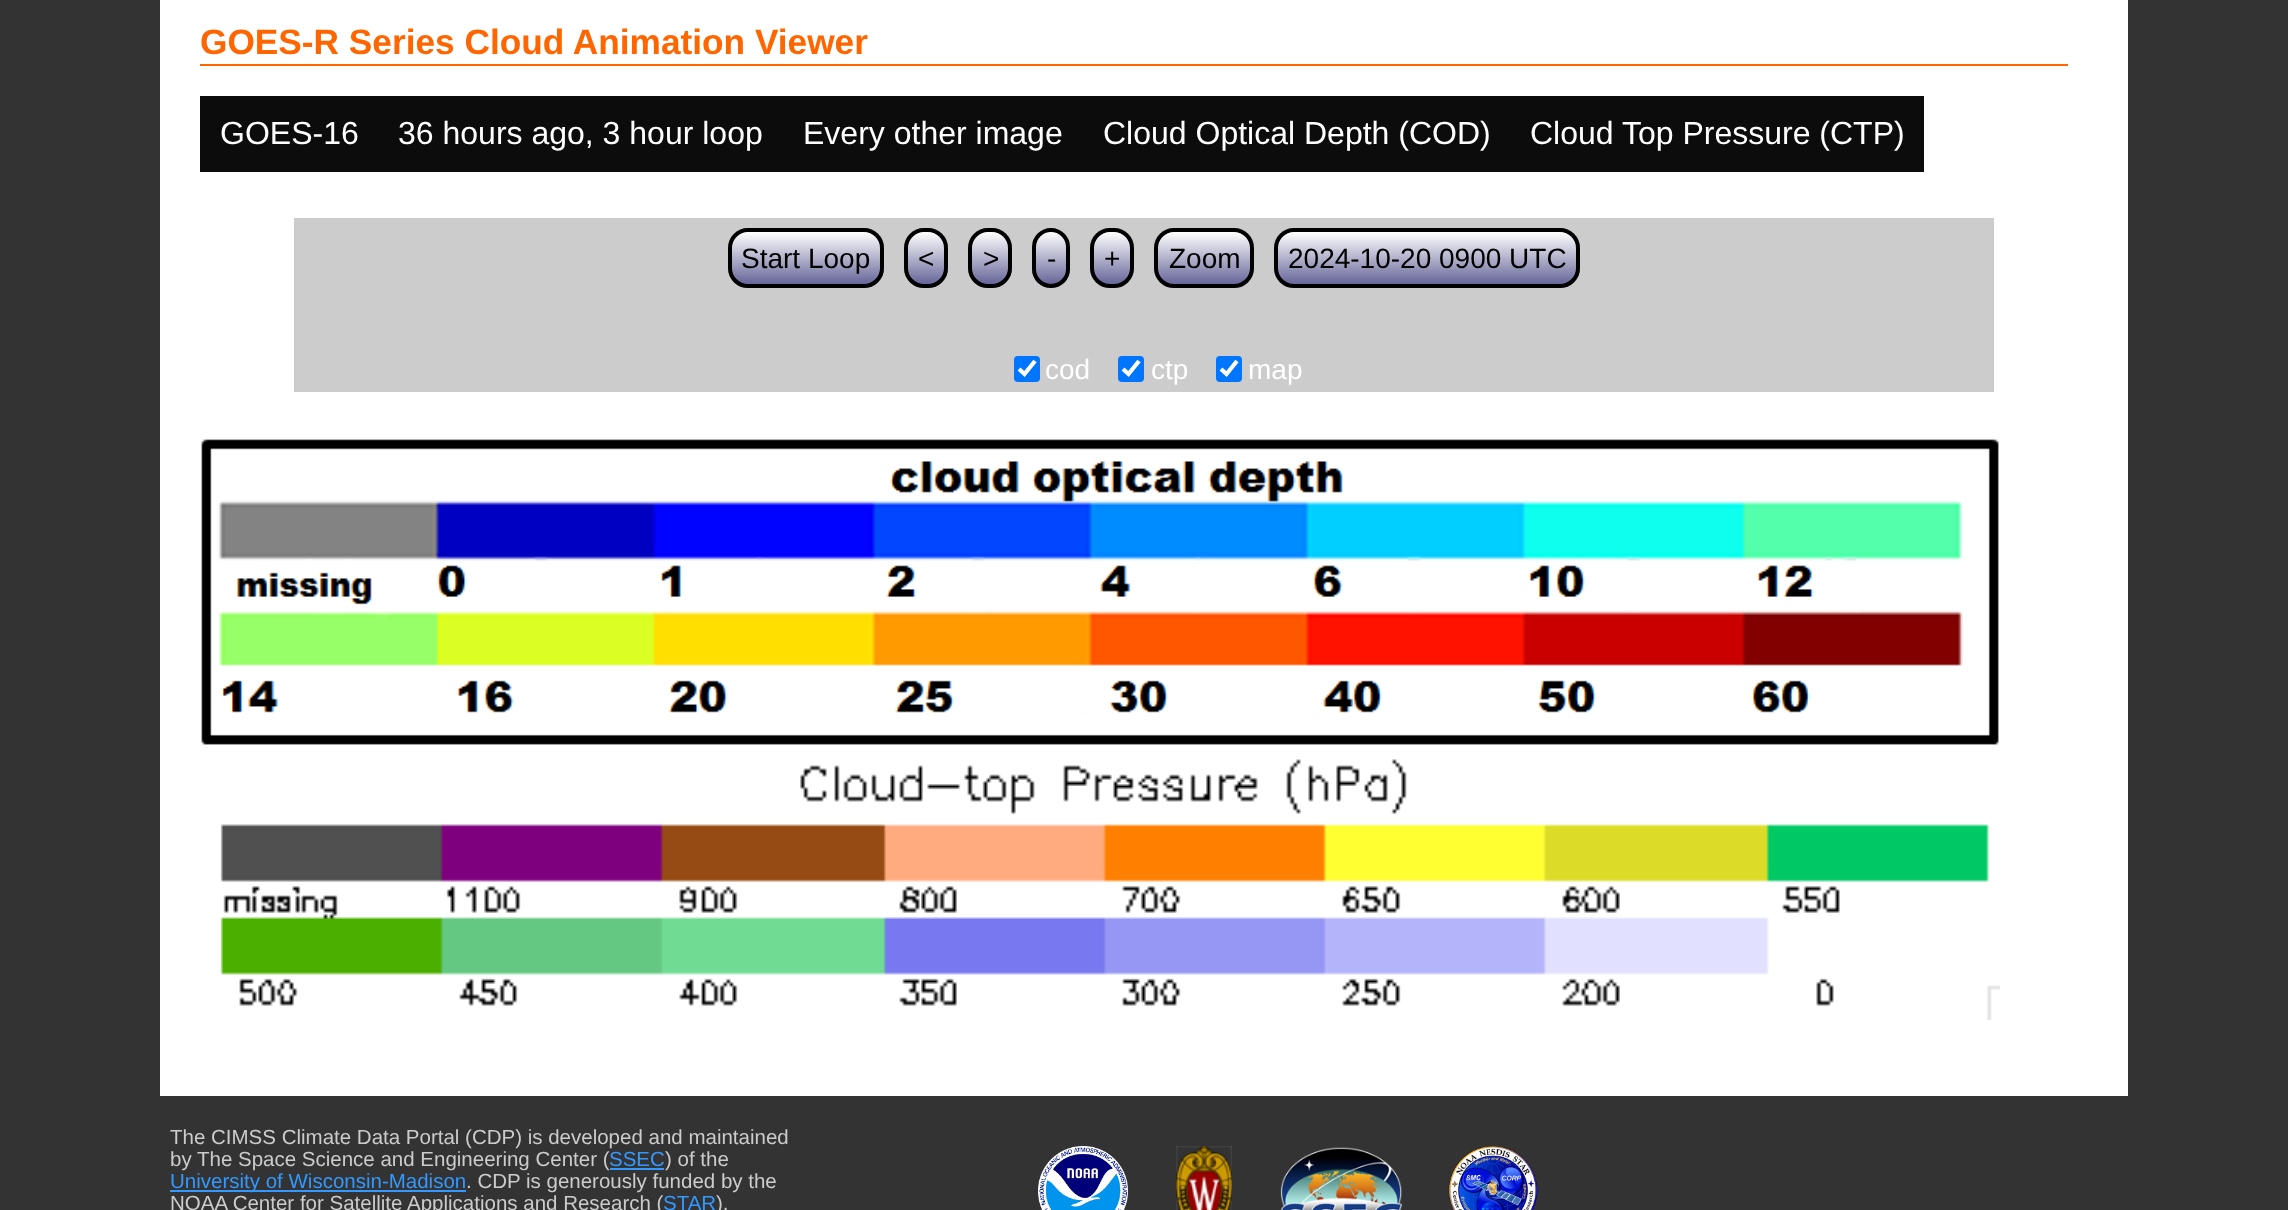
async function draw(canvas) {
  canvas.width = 2288
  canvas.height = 1210
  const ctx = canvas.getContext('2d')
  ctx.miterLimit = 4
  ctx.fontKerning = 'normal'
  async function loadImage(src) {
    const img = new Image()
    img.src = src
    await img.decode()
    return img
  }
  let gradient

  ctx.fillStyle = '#333'
  ctx.fillRect(0, 0, 2288, 1210)
  ctx.fillStyle = '#fff'
  ctx.fillRect(160, 0, 1968, 1096)
  ctx.fillStyle = '#f60'
  ctx.fillRect(200, 64, 1868, 2)
  ctx.font = 'bold 35.25px Liberation Sans'
  ctx.fillText('GOES-R Series Cloud Animation Viewer', 200, 54)
  ctx.fillStyle = '#0c0c0c'
  ctx.fillRect(200, 96, 1724, 76)
  ctx.font = '32px Liberation Sans'
  ctx.fillStyle = '#fff'
  ctx.fillText('GOES-16', 220, 144)
  ctx.fillText('36 hours ago, 3 hour loop', 398, 144)
  ctx.fillText('Every other image', 803, 144)
  ctx.fillText('Cloud Optical Depth (COD)', 1103, 144)
  ctx.fillText('Cloud Top Pressure (CTP)', 1530, 144)
  ctx.fillStyle = '#ccc'
  ctx.fillRect(294, 218, 1700, 80)
  ctx.save()
  ctx.beginPath()
  ctx.roundRect(728, 228, 156, 60, 20)
  ctx.clip()
  gradient = ctx.createLinearGradient(806, 232, 806, 284)
  gradient.addColorStop(0, '#fff')
  gradient.addColorStop(1, '#669')
  ctx.fillStyle = gradient
  ctx.fillRect(728, 232, 156, 52)
  ctx.restore()
  ctx.beginPath()
  ctx.roundRect(730, 230, 152, 56, 18)
  ctx.strokeStyle = '#000'
  ctx.lineWidth = 4
  ctx.stroke()
  ctx.font = '28px Liberation Sans'
  ctx.fillStyle = '#000'
  ctx.fillText('Start Loop', 741, 268)
  ctx.save()
  ctx.beginPath()
  ctx.roundRect(904, 228, 44, 60, 20)
  ctx.clip()
  gradient = ctx.createLinearGradient(926, 232, 926, 284)
  gradient.addColorStop(0, '#fff')
  gradient.addColorStop(1, '#669')
  ctx.fillStyle = gradient
  ctx.fillRect(904, 232, 44, 52)
  ctx.restore()
  ctx.beginPath()
  ctx.roundRect(906, 230, 40, 56, 18)
  ctx.stroke()
  ctx.fillText('<', 918, 268)
  ctx.save()
  ctx.beginPath()
  ctx.roundRect(968, 228, 44, 60, 20)
  ctx.clip()
  gradient = ctx.createLinearGradient(990, 232, 990, 284)
  gradient.addColorStop(0, '#fff')
  gradient.addColorStop(1, '#669')
  ctx.fillStyle = gradient
  ctx.fillRect(968, 232, 44, 52)
  ctx.restore()
  ctx.beginPath()
  ctx.roundRect(970, 230, 40, 56, 18)
  ctx.stroke()
  ctx.fillText('>', 983, 268)
  ctx.save()
  ctx.beginPath()
  ctx.roundRect(1032, 228, 38, 60, 19)
  ctx.clip()
  gradient = ctx.createLinearGradient(1051, 232, 1051, 284)
  gradient.addColorStop(0, '#fff')
  gradient.addColorStop(1, '#669')
  ctx.fillStyle = gradient
  ctx.fillRect(1032, 232, 38, 52)
  ctx.restore()
  ctx.beginPath()
  ctx.roundRect(1034, 230, 34, 56, 17)
  ctx.stroke()
  ctx.fillText('-', 1047, 268)
  ctx.save()
  ctx.beginPath()
  ctx.roundRect(1090, 228, 44, 60, 20)
  ctx.clip()
  gradient = ctx.createLinearGradient(1112, 232, 1112, 284)
  gradient.addColorStop(0, '#fff')
  gradient.addColorStop(1, '#669')
  ctx.fillStyle = gradient
  ctx.fillRect(1090, 232, 44, 52)
  ctx.restore()
  ctx.beginPath()
  ctx.roundRect(1092, 230, 40, 56, 18)
  ctx.stroke()
  ctx.fillText('+', 1104, 268)
  ctx.save()
  ctx.beginPath()
  ctx.roundRect(1154, 228, 100, 60, 20)
  ctx.clip()
  gradient = ctx.createLinearGradient(1204, 232, 1204, 284)
  gradient.addColorStop(0, '#fff')
  gradient.addColorStop(1, '#669')
  ctx.fillStyle = gradient
  ctx.fillRect(1154, 232, 100, 52)
  ctx.restore()
  ctx.beginPath()
  ctx.roundRect(1156, 230, 96, 56, 18)
  ctx.stroke()
  ctx.fillText('Zoom', 1169, 268)
  ctx.save()
  ctx.beginPath()
  ctx.roundRect(1274, 228, 306, 60, 20)
  ctx.clip()
  gradient = ctx.createLinearGradient(1427, 232, 1427, 284)
  gradient.addColorStop(0, '#fff')
  gradient.addColorStop(1, '#669')
  ctx.fillStyle = gradient
  ctx.fillRect(1274, 232, 306, 52)
  ctx.restore()
  ctx.beginPath()
  ctx.roundRect(1276, 230, 302, 56, 18)
  ctx.stroke()
  ctx.fillText('2024-10-20 0900 UTC', 1288, 268)
  ctx.fillStyle = '#ccc'
  ctx.fillRect(294, 298, 1700, 94)
  ctx.fillStyle = '#0075ff'
  ctx.beginPath()
  ctx.roundRect(1014, 356, 26, 26, 4)
  ctx.fill()
  ctx.beginPath()
  ctx.moveTo(1019, 369)
  ctx.lineTo(1024.5, 374)
  ctx.lineTo(1035, 361)
  ctx.strokeStyle = '#fff'
  ctx.lineWidth = 4.2
  ctx.stroke()
  ctx.fillStyle = '#fff'
  ctx.fillText('cod', 1045, 379)
  ctx.fillStyle = '#0075ff'
  ctx.beginPath()
  ctx.roundRect(1118, 356, 26, 26, 4)
  ctx.fill()
  ctx.beginPath()
  ctx.moveTo(1123, 369)
  ctx.lineTo(1128.5, 374)
  ctx.lineTo(1139, 361)
  ctx.stroke()
  ctx.fillStyle = '#fff'
  ctx.fillText('ctp', 1151, 379)
  ctx.fillStyle = '#0075ff'
  ctx.beginPath()
  ctx.roundRect(1216, 356, 26, 26, 4)
  ctx.fill()
  ctx.beginPath()
  ctx.moveTo(1221, 369)
  ctx.lineTo(1226.5, 374)
  ctx.lineTo(1237, 361)
  ctx.stroke()
  ctx.fillStyle = '#fff'
  ctx.fillText('map', 1248, 379)
  ctx.drawImage(await loadImage('image0.png'), 201, 439, 1798, 306)
  ctx.drawImage(await loadImage('image1.png'), 220, 759, 1780, 261)
  ctx.font = '20.5px Liberation Sans'
  ctx.fillStyle = '#ccc'
  ctx.fillText('The CIMSS Climate Data Portal (CDP) is developed and maintained', 170, 1144)
  ctx.fillText('by The Space Science and Engineering Center (', 170, 1166)
  ctx.fillStyle = '#39f'
  ctx.fillText('SSEC', 609, 1166)
  ctx.fillRect(610, 1168, 54, 2)
  ctx.fillStyle = '#ccc'
  ctx.fillText(') of the', 665, 1166)
  ctx.fillStyle = '#39f'
  ctx.fillRect(170, 1190, 296, 2)
  ctx.fillText('University of Wisconsin-Madison', 170, 1188)
  ctx.fillStyle = '#ccc'
  ctx.fillText('. CDP is generously funded by the', 466, 1188)
  ctx.fillText('NOAA Center for Satellite Applications and Research (', 170, 1210)
  ctx.fillStyle = '#39f'
  ctx.fillText('STAR', 663, 1210)
  ctx.fillStyle = '#ccc'
  ctx.fillText(').', 716, 1210)
  ctx.drawImage(await loadImage('image2.png'), 1038, 1146, 90, 64)
  ctx.drawImage(await loadImage('image3.png'), 1176, 1146, 56, 64)
  ctx.drawImage(await loadImage('image4.png'), 1280, 1147, 122, 63)
  ctx.drawImage(await loadImage('image5.png'), 1448, 1146, 90, 64)
}

draw(document.querySelector('canvas'))
